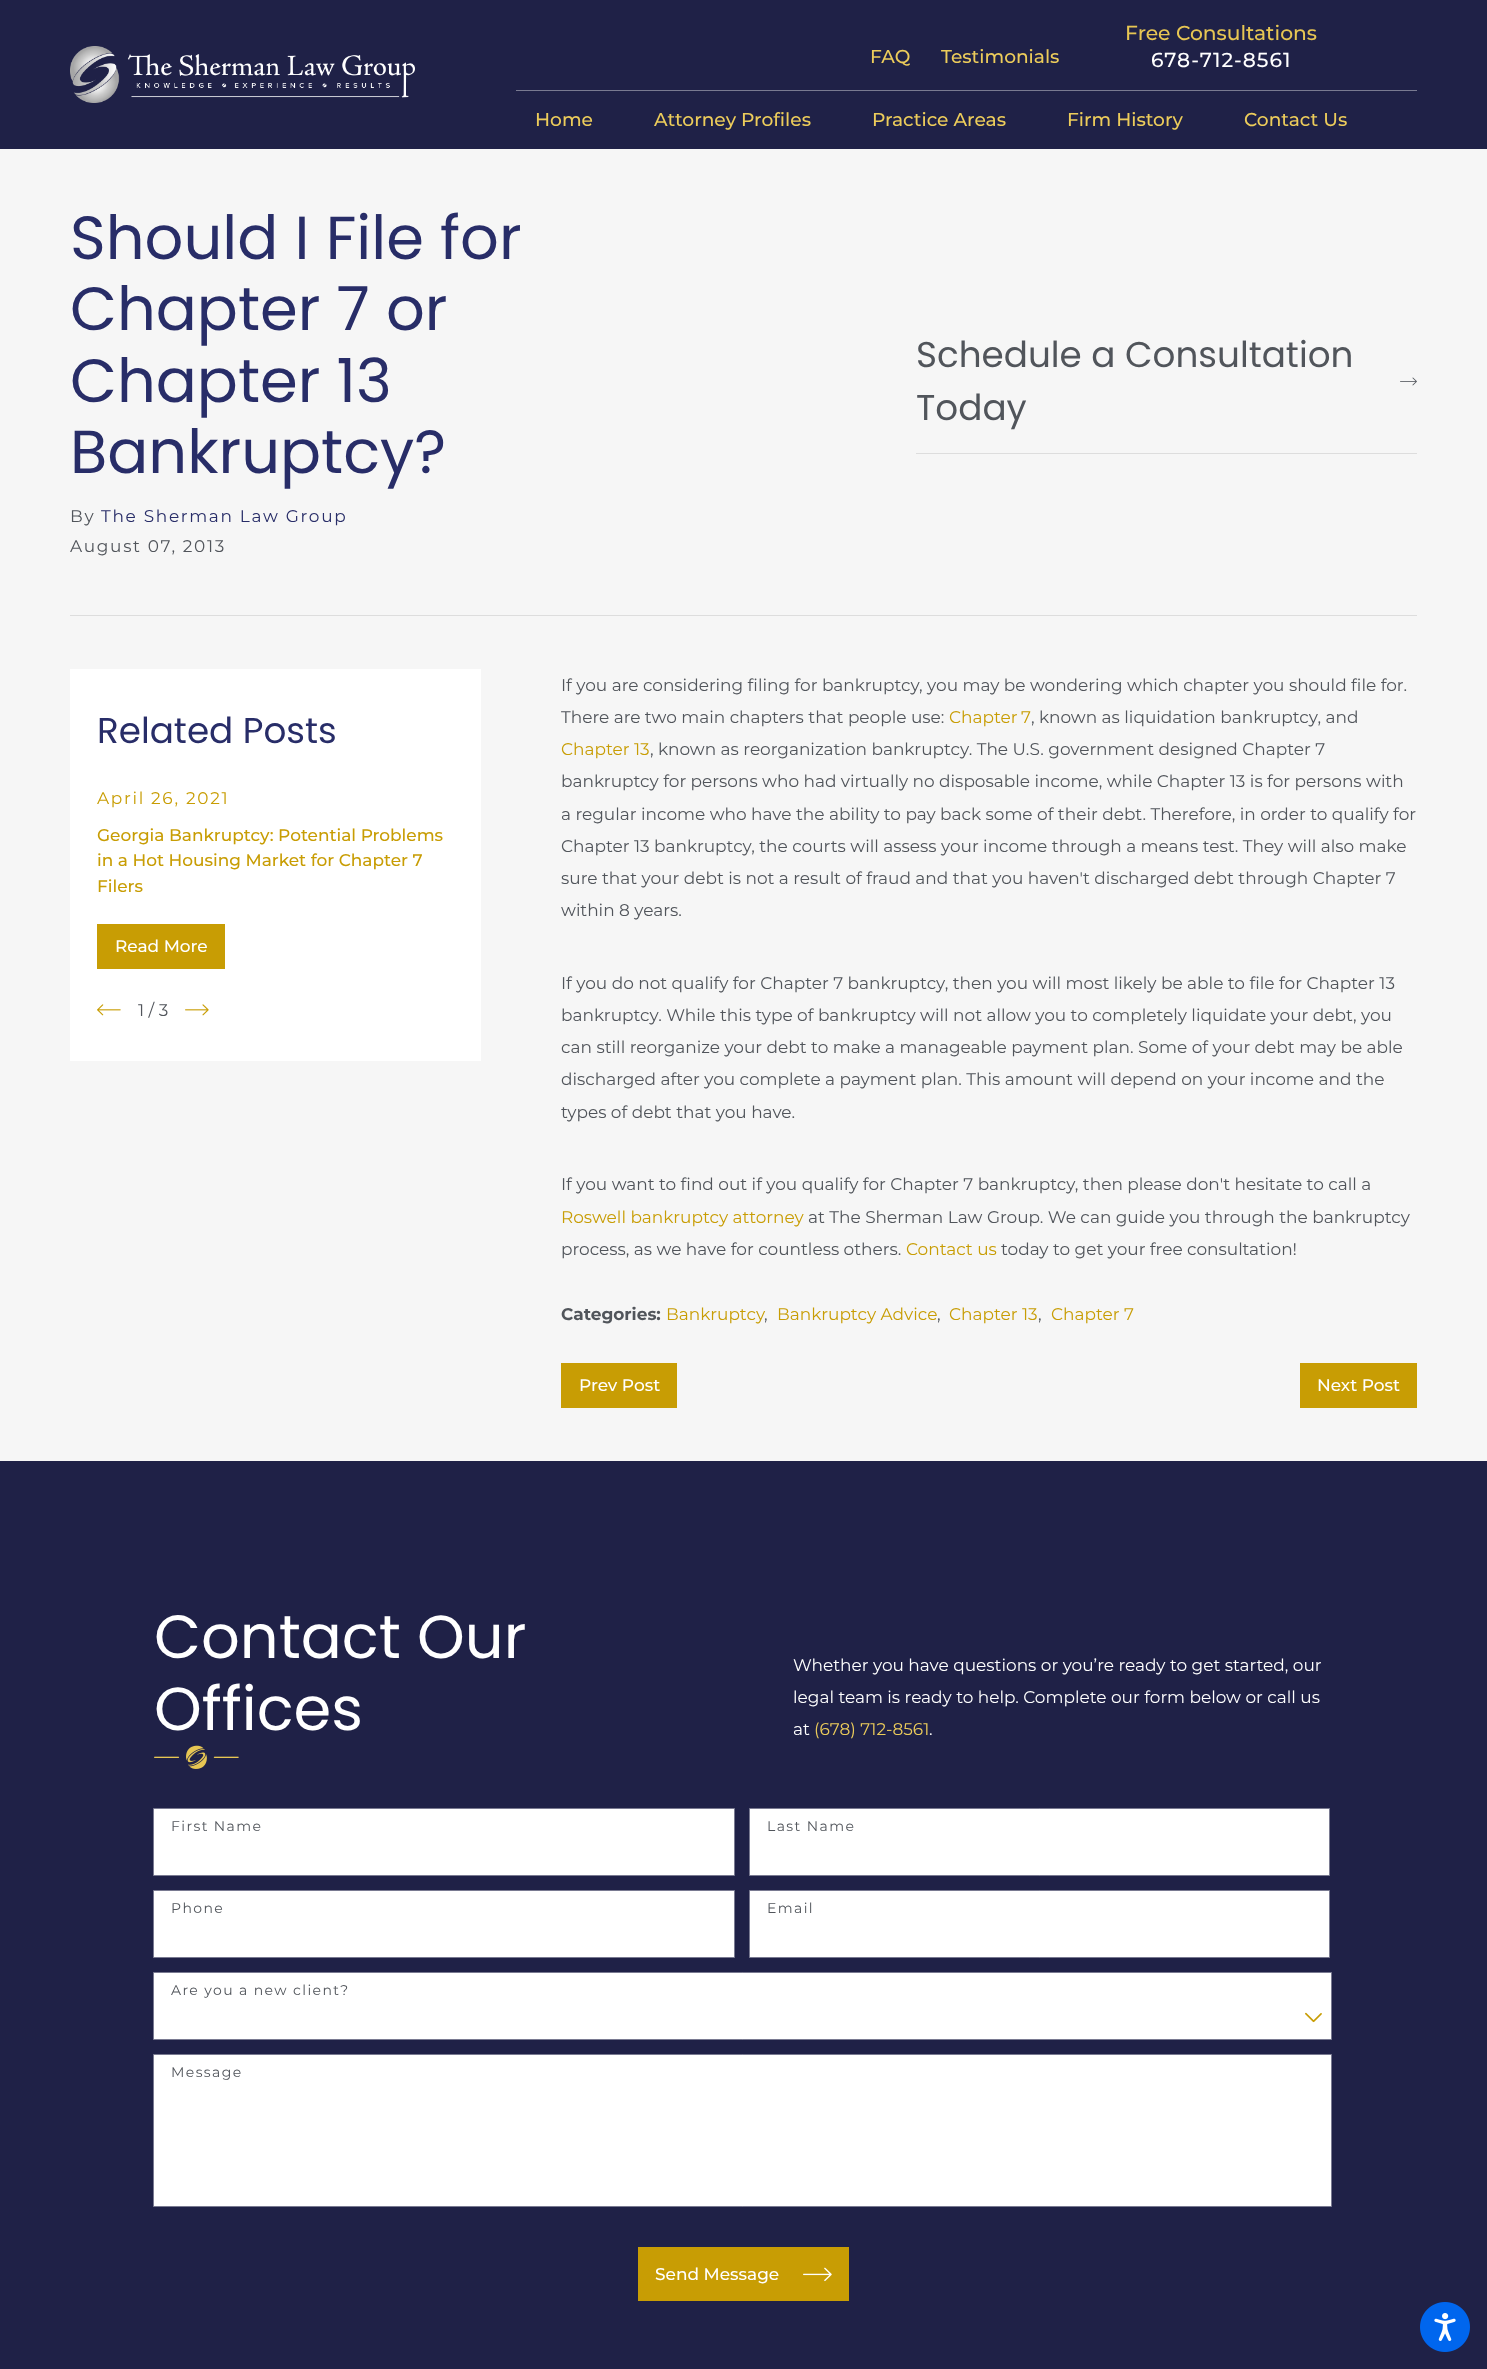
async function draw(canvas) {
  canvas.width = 1487
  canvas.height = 2369
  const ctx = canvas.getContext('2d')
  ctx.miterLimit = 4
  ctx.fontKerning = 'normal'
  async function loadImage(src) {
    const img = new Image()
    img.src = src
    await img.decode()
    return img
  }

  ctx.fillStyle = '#f6f6f6'
  ctx.fillRect(0, 0, 1487, 2369)
  ctx.fillStyle = '#1f2147'
  ctx.fillRect(0, 0, 1487, 149)
  ctx.drawImage(await loadImage('image0.png'), 70, 46, 345, 57)
  ctx.font = '500 18.6px Montserrat'
  ctx.fillStyle = '#eccc5b'
  ctx.fillText('FAQ', 870, 63)
  ctx.fillText('Testimonials', 941, 63)
  ctx.font = '500 20.25px Montserrat'
  ctx.fillStyle = '#e7c653'
  ctx.fillText('Free Consultations', 1125, 40)
  ctx.letterSpacing = '1px'
  ctx.fillStyle = '#fff'
  ctx.fillText('678-712-8561', 1151, 67)
  ctx.fillStyle = '#797a91'
  ctx.fillRect(516, 90, 901, 1)
  ctx.letterSpacing = '0px'
  ctx.font = '500 18.6px Montserrat'
  ctx.fillStyle = '#eccc5b'
  ctx.fillText('Home', 535, 126)
  ctx.fillText('Attorney Profiles', 654, 126)
  ctx.fillText('Practice Areas', 872, 126)
  ctx.fillText('Firm History', 1067, 126)
  ctx.fillText('Contact Us', 1244, 126)
  ctx.fillStyle = '#1f2147'
  ctx.fillRect(0, 1461, 1487, 908)
  ctx.drawImage(await loadImage('image1.png'), 1420, 2302, 50, 50)
  ctx.fillStyle = '#ddd'
  ctx.fillRect(70, 615, 1347, 1)
  ctx.font = '60.75px Poppins'
  ctx.fillStyle = '#282d68'
  ctx.fillText('Should I File for', 70, 259)
  ctx.fillText('Chapter 7 or', 70, 330)
  ctx.fillText('Chapter 13', 70, 402)
  ctx.fillText('Bankruptcy?', 70, 473)
  ctx.letterSpacing = '1.7px'
  ctx.font = '16.95px Montserrat'
  ctx.fillStyle = '#51555b'
  ctx.fillText('By', 70, 522)
  ctx.fillStyle = '#282d68'
  ctx.fillText('The Sherman Law Group', 101, 522)
  ctx.fillStyle = '#51555b'
  ctx.fillText('August 07, 2013', 70, 552)
  ctx.fillStyle = '#ddd'
  ctx.fillRect(916, 453, 501, 1)
  ctx.letterSpacing = '0px'
  ctx.font = '35.75px Poppins'
  ctx.fillStyle = '#51555b'
  ctx.fillText('Schedule a Consultation', 916, 367)
  ctx.fillText('Today', 916, 420)
  ctx.drawImage(await loadImage('image2.png'), 1400, 377, 17, 9)
  ctx.fillStyle = '#fff'
  ctx.fillRect(70, 669, 411, 392)
  ctx.fillStyle = '#282d68'
  ctx.fillText('Related Posts', 97, 743)
  ctx.letterSpacing = '1.7px'
  ctx.font = '16.95px Montserrat'
  ctx.fillStyle = '#c89d04'
  ctx.fillText('April 26, 2021', 97, 804)
  ctx.letterSpacing = '0px'
  ctx.font = '500 16.95px Montserrat'
  ctx.fillText('Georgia Bankruptcy: Potential Problems', 97, 841)
  ctx.fillText('in a Hot Housing Market for Chapter 7', 97, 866)
  ctx.fillText('Filers', 97, 892)
  ctx.fillRect(97, 924, 128, 45)
  ctx.fillStyle = '#fff'
  ctx.fillText('Read More', 115, 952)
  ctx.drawImage(await loadImage('image3.png'), 97, 1004, 24, 12)
  ctx.font = '16.95px Montserrat'
  ctx.fillStyle = '#51555b'
  ctx.fillText('1 / 3', 138, 1016)
  ctx.drawImage(await loadImage('image4.png'), 185, 1004, 24, 12)
  ctx.fillText('If you are considering filing for bankruptcy, you may be wondering which chapter you should file for.', 561, 691)
  ctx.fillText('There are two main chapters that people use:', 561, 723)
  ctx.wordSpacing = '-1px'
  ctx.fillStyle = '#c89d04'
  ctx.fillText('Chapter 7', 949, 723)
  ctx.wordSpacing = '0px'
  ctx.fillStyle = '#51555b'
  ctx.fillText(', known as liquidation bankruptcy, and', 1031, 723)
  ctx.fillStyle = '#c89d04'
  ctx.fillText('Chapter 13', 561, 755)
  ctx.fillStyle = '#51555b'
  ctx.fillText(', known as reorganization bankruptcy. The U.S. government designed Chapter 7', 650, 755)
  ctx.fillText('bankruptcy for persons who had virtually no disposable income, while Chapter 13 is for persons with', 561, 787)
  ctx.fillText('a regular income who have the ability to pay back some of their debt. Therefore, in order to qualify for', 561, 820)
  ctx.fillText('Chapter 13 bankruptcy, the courts will assess your income through a means test. They will also make', 561, 852)
  ctx.fillText('sure that your debt is not a result of fraud and that you haven\'t discharged debt through Chapter 7', 561, 884)
  ctx.fillText('within 8 years.', 561, 916)
  ctx.fillText('If you do not qualify for Chapter 7 bankruptcy, then you will most likely be able to file for Chapter 13', 561, 989)
  ctx.fillText('bankruptcy. While this type of bankruptcy will not allow you to completely liquidate your debt, you', 561, 1021)
  ctx.fillText('can still reorganize your debt to make a manageable payment plan. Some of your debt may be able', 561, 1053)
  ctx.fillText('discharged after you complete a payment plan. This amount will depend on your income and the', 561, 1085)
  ctx.fillText('types of debt that you have.', 561, 1118)
  ctx.fillText('If you want to find out if you qualify for Chapter 7 bankruptcy, then please don\'t hesitate to call a', 561, 1190)
  ctx.fillStyle = '#c89d04'
  ctx.fillText('Roswell bankruptcy attorney', 561, 1223)
  ctx.fillStyle = '#51555b'
  ctx.fillText('at The Sherman Law Group. We can guide you through the bankruptcy', 808, 1223)
  ctx.fillText('process, as we have for countless others.', 561, 1255)
  ctx.fillStyle = '#c89d04'
  ctx.fillText('Contact us', 906, 1255)
  ctx.fillStyle = '#51555b'
  ctx.fillText('today to get your free consultation!', 1001, 1255)
  ctx.font = 'bold 16.95px Montserrat'
  ctx.fillText('Categories:', 561, 1320)
  ctx.font = '16.95px Montserrat'
  ctx.fillStyle = '#c89d04'
  ctx.fillText('Bankruptcy', 666, 1320)
  ctx.fillStyle = '#51555b'
  ctx.fillText(',', 764, 1320)
  ctx.fillStyle = '#c89d04'
  ctx.fillText('Bankruptcy Advice', 777, 1320)
  ctx.fillStyle = '#51555b'
  ctx.fillText(',', 937, 1320)
  ctx.fillStyle = '#c89d04'
  ctx.fillText('Chapter 13', 949, 1320)
  ctx.fillStyle = '#51555b'
  ctx.fillText(',', 1038, 1320)
  ctx.fillStyle = '#c89d04'
  ctx.fillText('Chapter 7', 1051, 1320)
  ctx.fillRect(561, 1363, 116, 45)
  ctx.font = '500 16.95px Montserrat'
  ctx.fillStyle = '#fff'
  ctx.fillText('Prev Post', 579, 1391)
  ctx.fillStyle = '#c89d04'
  ctx.fillRect(1300, 1363, 117, 45)
  ctx.fillStyle = '#fff'
  ctx.fillText('Next Post', 1317, 1391)
  ctx.font = '60.75px Poppins'
  ctx.fillText('Contact Our', 154, 1658)
  ctx.fillText('Offices', 154, 1730)
  ctx.drawImage(await loadImage('image5.png'), 154, 1745, 85, 24)
  ctx.font = '16.95px Montserrat'
  ctx.fillText('Whether you have questions or you’re ready to get started, our', 793, 1671)
  ctx.fillText('legal team is ready to help. Complete our form below or call us', 793, 1703)
  ctx.fillText('at', 793, 1735)
  ctx.fillStyle = '#eccc5b'
  ctx.fillText('(678) 712-8561', 814, 1735)
  ctx.fillStyle = '#fff'
  ctx.fillText('.', 929, 1735)
  ctx.beginPath()
  ctx.rect(153.5, 1808.5, 581, 67)
  ctx.fill()
  ctx.strokeStyle = '#797a91'
  ctx.stroke()
  ctx.letterSpacing = '1.4px'
  ctx.font = '14px Montserrat'
  ctx.fillStyle = '#51555b'
  ctx.fillText('First Name', 171, 1831)
  ctx.fillStyle = '#fff'
  ctx.beginPath()
  ctx.rect(749.5, 1808.5, 580, 67)
  ctx.fill()
  ctx.stroke()
  ctx.fillStyle = '#51555b'
  ctx.fillText('Last Name', 767, 1831)
  ctx.fillStyle = '#fff'
  ctx.beginPath()
  ctx.rect(153.5, 1890.5, 581, 67)
  ctx.fill()
  ctx.stroke()
  ctx.fillStyle = '#51555b'
  ctx.fillText('Phone', 171, 1913)
  ctx.fillStyle = '#fff'
  ctx.beginPath()
  ctx.rect(749.5, 1890.5, 580, 67)
  ctx.fill()
  ctx.stroke()
  ctx.fillStyle = '#51555b'
  ctx.fillText('Email', 767, 1913)
  ctx.fillStyle = '#fff'
  ctx.beginPath()
  ctx.rect(153.5, 1972.5, 1178, 67)
  ctx.fill()
  ctx.stroke()
  ctx.fillStyle = '#51555b'
  ctx.fillText('Are you a new client?', 171, 1995)
  ctx.drawImage(await loadImage('image6.png'), 1305, 2012, 17, 11)
  ctx.fillStyle = '#fff'
  ctx.beginPath()
  ctx.rect(153.5, 2054.5, 1178, 152)
  ctx.fill()
  ctx.stroke()
  ctx.fillStyle = '#51555b'
  ctx.fillText('Message', 171, 2077)
  ctx.fillStyle = '#c89d04'
  ctx.fillRect(638, 2247, 211, 54)
  ctx.letterSpacing = '0px'
  ctx.font = '500 16.95px Montserrat'
  ctx.fillStyle = '#fff'
  ctx.fillText('Send Message', 655, 2280)
  ctx.drawImage(await loadImage('image7.png'), 803, 2267, 29, 15)
}

draw(document.querySelector('canvas'))
